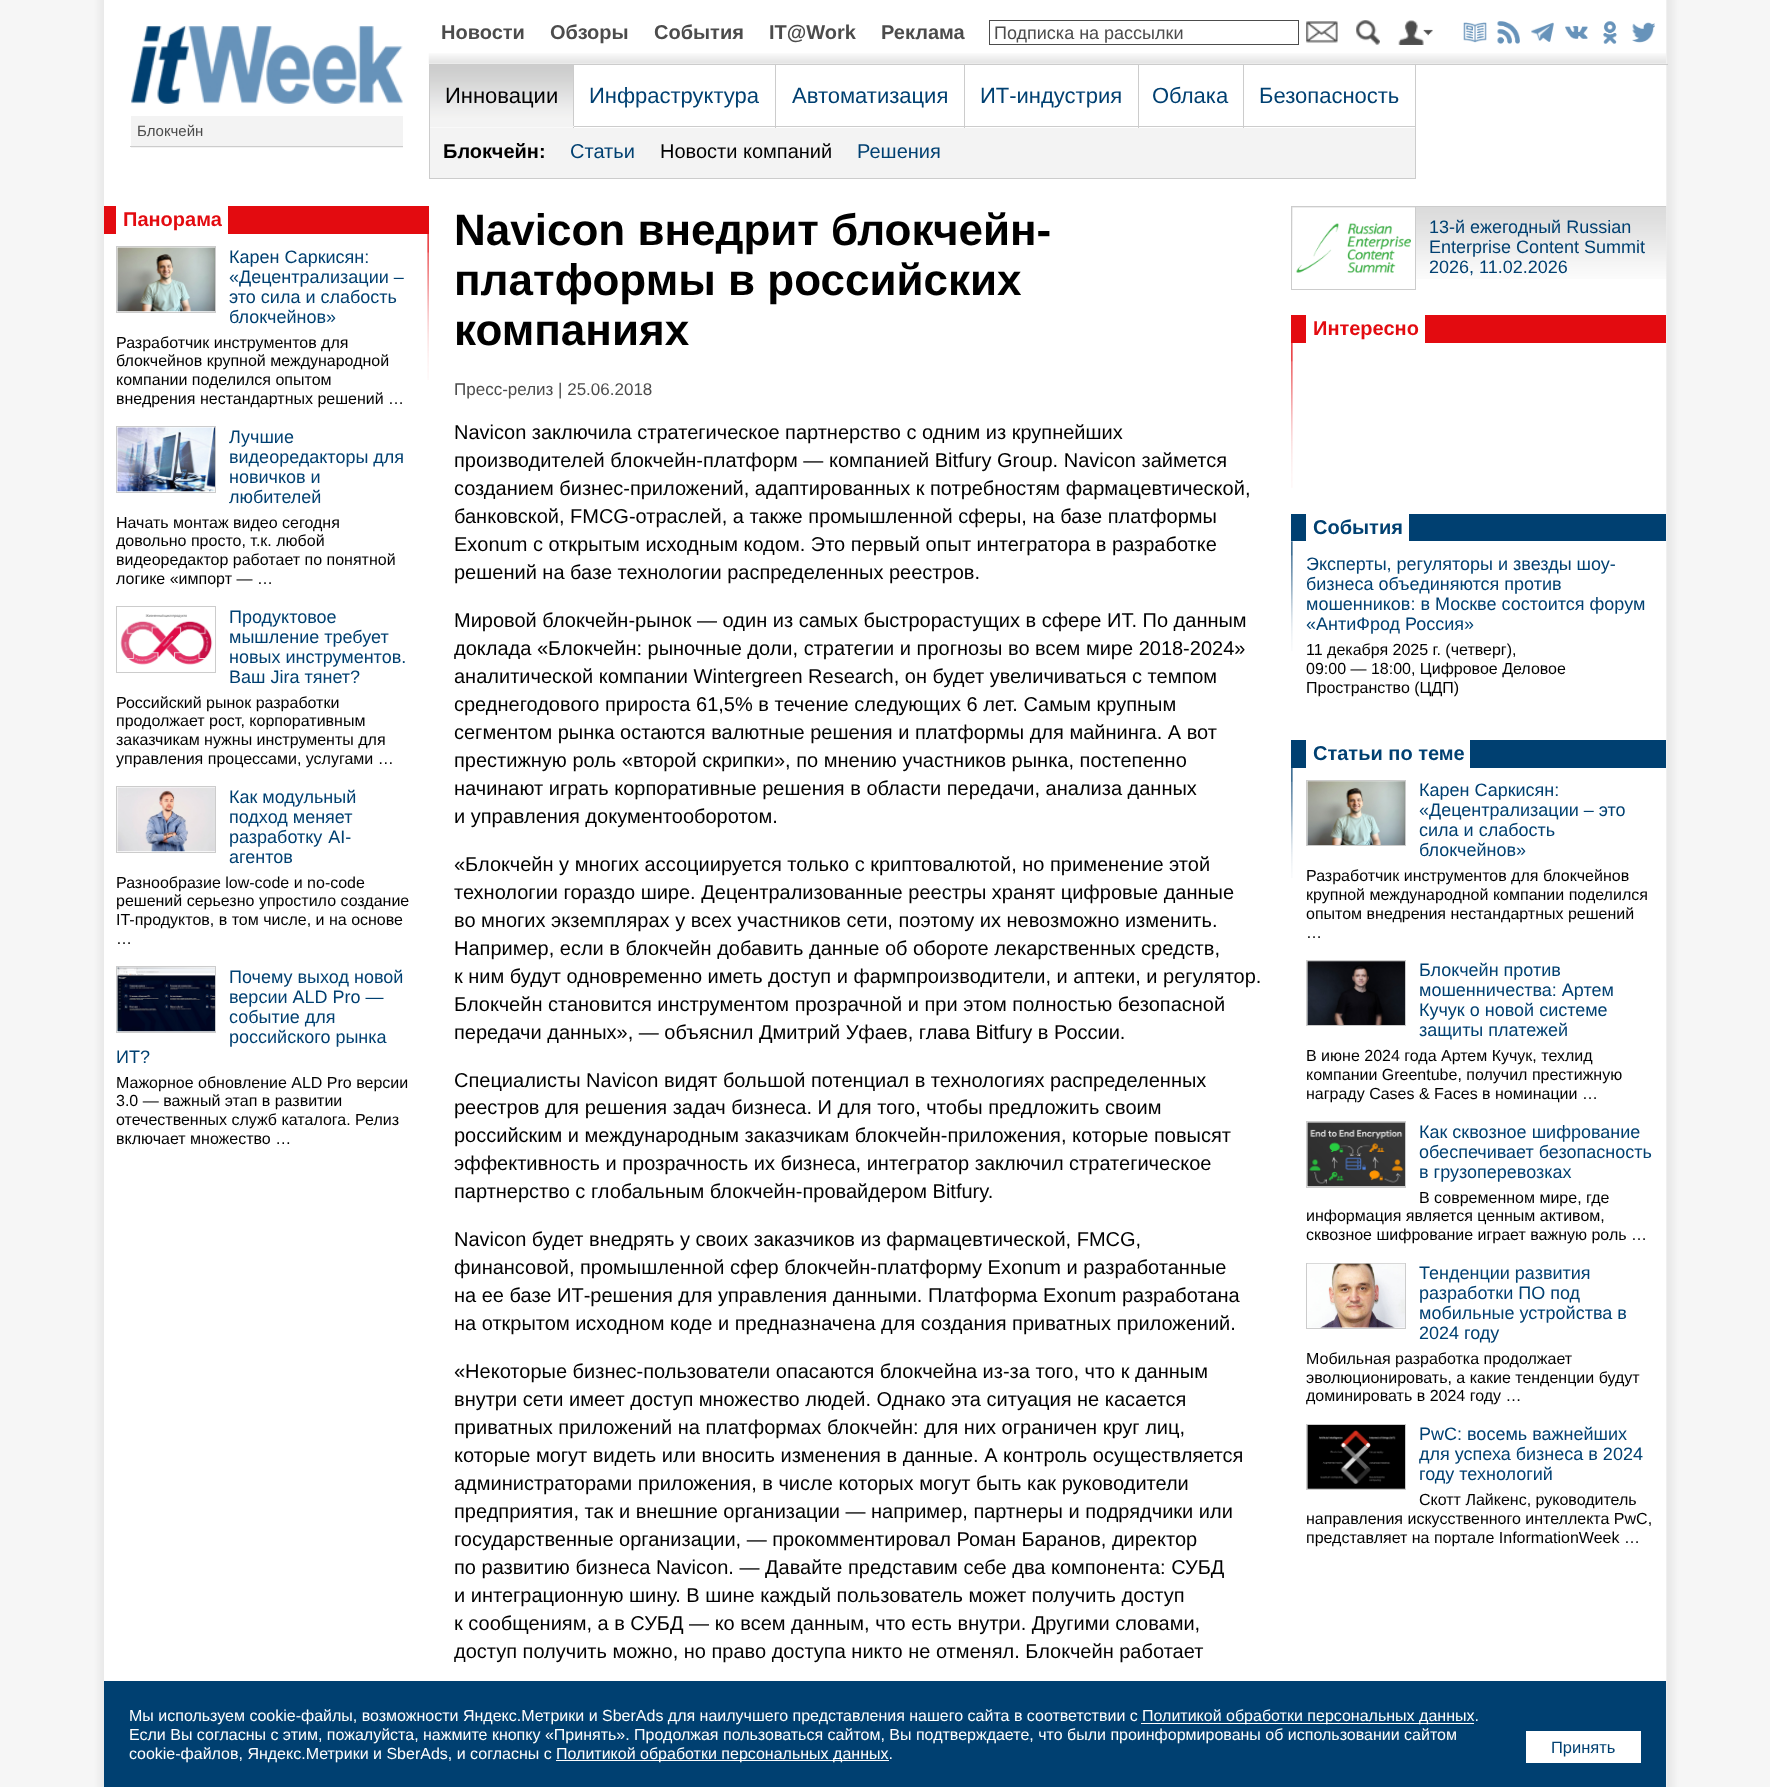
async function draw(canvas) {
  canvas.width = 1770
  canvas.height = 1787
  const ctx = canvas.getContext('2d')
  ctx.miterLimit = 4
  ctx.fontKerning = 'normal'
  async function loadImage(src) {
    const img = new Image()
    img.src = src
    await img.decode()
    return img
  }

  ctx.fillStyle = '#fff'
  ctx.fillRect(0, 0, 1770, 1787)
  ctx.drawImage(await loadImage('image0.png'), 0, 0, 1770, 1787)
  ctx.fillRect(104, 0, 3, 1681)
  ctx.drawImage(await loadImage('image1.png'), 131, 26, 272, 78)
  ctx.fillStyle = '#f3f3f3'
  ctx.fillRect(131, 116, 272, 32)
  ctx.fillStyle = '#ccc'
  ctx.fillRect(130, 146, 273, 1)
  ctx.font = '15px Liberation Sans'
  ctx.fillStyle = '#4c4c4c'
  ctx.fillText('Блокчейн', 137, 136)
  ctx.drawImage(await loadImage('image2.png'), 428, 53, 1238, 11)
  ctx.font = 'bold 20px Liberation Sans'
  ctx.fillText('Новости', 441, 39)
  ctx.fillText('Обзоры', 550, 39)
  ctx.fillText('События', 654, 39)
  ctx.fillText('IT@Work', 769, 39)
  ctx.fillText('Реклама', 881, 39)
  ctx.strokeStyle = '#4c4c4c'
  ctx.strokeRect(989.5, 20.5, 309, 24)
  ctx.font = '18px Liberation Sans'
  ctx.fillText('Подписка на рассылки', 994, 39)
  ctx.drawImage(await loadImage('image3.png'), 1306, 21, 32, 22)
  ctx.drawImage(await loadImage('image4.png'), 1356, 20, 24, 25)
  ctx.drawImage(await loadImage('image5.png'), 1398, 20, 35, 25)
  ctx.drawImage(await loadImage('image6.png'), 1463, 22, 24, 21)
  ctx.drawImage(await loadImage('image7.png'), 1497, 21, 23, 23)
  ctx.drawImage(await loadImage('image8.png'), 1531, 22, 23, 20)
  ctx.drawImage(await loadImage('image9.png'), 1565, 26, 23, 13)
  ctx.drawImage(await loadImage('image10.png'), 1603, 21, 14, 23)
  ctx.drawImage(await loadImage('image11.png'), 1632, 22, 23, 21)
  ctx.fillStyle = '#ccc'
  ctx.fillRect(1243, 64, 425, 1)
  ctx.drawImage(await loadImage('image12.png'), 430, 65, 143, 63)
  ctx.fillRect(574, 126, 842, 1)
  ctx.fillRect(1243, 64, 1, 64)
  ctx.fillRect(1138, 64, 106, 1)
  ctx.fillRect(1138, 64, 1, 64)
  ctx.fillRect(964, 64, 175, 1)
  ctx.fillRect(964, 64, 1, 64)
  ctx.fillRect(775, 64, 190, 1)
  ctx.fillRect(775, 64, 1, 64)
  ctx.fillRect(573, 64, 203, 1)
  ctx.fillRect(573, 64, 1, 64)
  ctx.fillRect(429, 64, 145, 1)
  ctx.fillRect(1415, 126, 1, 53)
  ctx.fillRect(429, 178, 987, 1)
  ctx.fillRect(429, 126, 1, 53)
  ctx.fillStyle = '#f3f3f3'
  ctx.fillRect(429, 126, 145, 1)
  ctx.fillStyle = '#ccc'
  ctx.fillRect(429, 64, 1, 64)
  ctx.font = '22px Liberation Sans'
  ctx.fillStyle = '#000'
  ctx.fillText('Инновации', 445, 103)
  ctx.fillStyle = '#004071'
  ctx.fillText('Инфраструктура', 589, 103)
  ctx.fillText('Автоматизация', 792, 103)
  ctx.fillText('ИТ-индустрия', 980, 103)
  ctx.fillText('Облака', 1152, 103)
  ctx.fillStyle = '#ccc'
  ctx.fillRect(1415, 64, 1, 64)
  ctx.fillStyle = '#004071'
  ctx.fillText('Безопасность', 1259, 103)
  ctx.fillStyle = '#f3f3f3'
  ctx.fillRect(430, 128, 985, 50)
  ctx.font = 'bold 20px Liberation Sans'
  ctx.fillStyle = '#000'
  ctx.fillText('Блокчейн:', 443, 158)
  ctx.font = '20px Liberation Sans'
  ctx.fillStyle = '#004071'
  ctx.fillText('Статьи', 570, 158)
  ctx.fillStyle = '#000'
  ctx.fillText('Новости компаний', 660, 158)
  ctx.fillStyle = '#004071'
  ctx.fillText('Решения', 857, 158)
  ctx.fillStyle = '#e30b10'
  ctx.fillRect(104, 206, 325, 28)
  ctx.fillStyle = '#fff'
  ctx.fillRect(116, 206, 112, 28)
  ctx.font = 'bold 20px Liberation Sans'
  ctx.fillStyle = '#e30b10'
  ctx.fillText('Панорама', 123, 226)
  ctx.strokeStyle = '#ccc'
  ctx.strokeRect(116.5, 246.5, 99, 66)
  ctx.drawImage(await loadImage('image13.png'), 117, 247, 98, 65)
  ctx.font = '18px Liberation Sans'
  ctx.fillStyle = '#004071'
  ctx.fillText('Карен Саркисян:', 229, 263)
  ctx.fillText('«Децентрализации –', 229, 283)
  ctx.fillText('это сила и слабость', 229, 303)
  ctx.fillText('блокчейнов»', 229, 323)
  ctx.font = '16px Liberation Sans'
  ctx.fillStyle = '#000'
  ctx.fillText('Разработчик инструментов для', 116, 348)
  ctx.fillText('блокчейнов крупной международной', 116, 366)
  ctx.fillText('компании поделился опытом', 116, 385)
  ctx.fillText('внедрения нестандартных решений …', 116, 404)
  ctx.strokeRect(116.5, 426.5, 99, 66)
  ctx.drawImage(await loadImage('image14.png'), 117, 427, 98, 65)
  ctx.font = '18px Liberation Sans'
  ctx.fillStyle = '#004071'
  ctx.fillText('Лучшие', 229, 443)
  ctx.fillText('видеоредакторы для', 229, 463)
  ctx.fillText('новичков и', 229, 483)
  ctx.fillText('любителей', 229, 503)
  ctx.font = '16px Liberation Sans'
  ctx.fillStyle = '#000'
  ctx.fillText('Начать монтаж видео сегодня', 116, 528)
  ctx.fillText('довольно просто, т.к. любой', 116, 546)
  ctx.fillText('видеоредактор работает по понятной', 116, 565)
  ctx.fillText('логике «импорт — …', 116, 584)
  ctx.strokeRect(116.5, 606.5, 99, 66)
  ctx.drawImage(await loadImage('image15.png'), 120, 614, 93, 51)
  ctx.font = '18px Liberation Sans'
  ctx.fillStyle = '#004071'
  ctx.fillText('Продуктовое', 229, 623)
  ctx.fillText('мышление требует', 229, 643)
  ctx.fillText('новых инструментов.', 229, 663)
  ctx.fillText('Ваш Jira тянет?', 229, 683)
  ctx.font = '16px Liberation Sans'
  ctx.fillStyle = '#000'
  ctx.fillText('Российский рынок разработки', 116, 708)
  ctx.fillText('продолжает рост, корпоративным', 116, 726)
  ctx.fillText('заказчикам нужны инструменты для', 116, 745)
  ctx.fillText('управления процессами, услугами …', 116, 764)
  ctx.strokeRect(116.5, 786.5, 99, 66)
  ctx.drawImage(await loadImage('image16.png'), 117, 787, 98, 65)
  ctx.font = '18px Liberation Sans'
  ctx.fillStyle = '#004071'
  ctx.fillText('Как модульный', 229, 803)
  ctx.fillText('подход меняет', 229, 823)
  ctx.wordSpacing = '1px'
  ctx.fillText('разработку AI-', 229, 843)
  ctx.wordSpacing = '0px'
  ctx.fillText('агентов', 229, 863)
  ctx.font = '16px Liberation Sans'
  ctx.fillStyle = '#000'
  ctx.fillText('Разнообразие low-code и no-code', 116, 888)
  ctx.fillText('решений серьезно упростило создание', 116, 906)
  ctx.fillText('IT-продуктов, в том числе, и на основе', 116, 925)
  ctx.fillText('…', 116, 944)
  ctx.strokeRect(116.5, 966.5, 99, 66)
  ctx.drawImage(await loadImage('image17.png'), 117, 967, 98, 65)
  ctx.font = '18px Liberation Sans'
  ctx.fillStyle = '#004071'
  ctx.fillText('Почему выход новой', 229, 983)
  ctx.fillText('версии ALD Pro —', 229, 1003)
  ctx.fillText('событие для', 229, 1023)
  ctx.fillText('российского рынка', 229, 1043)
  ctx.fillText('ИТ?', 116, 1063)
  ctx.font = '16px Liberation Sans'
  ctx.fillStyle = '#000'
  ctx.fillText('Мажорное обновление ALD Pro версии', 116, 1088)
  ctx.fillText('3.0 — важный этап в развитии', 116, 1106)
  ctx.fillText('отечественных служб каталога. Релиз', 116, 1125)
  ctx.fillText('включает множество …', 116, 1144)
  ctx.drawImage(await loadImage('image18.png'), 427, 234, 2, 146)
  ctx.font = 'bold 44px Liberation Sans'
  ctx.fillText('Navicon внедрит блокчейн-', 454, 245)
  ctx.fillText('платформы в российских', 454, 295)
  ctx.fillText('компаниях', 454, 345)
  ctx.font = '17px Liberation Sans'
  ctx.fillStyle = '#4c4c4c'
  ctx.fillText('Пресс-релиз | 25.06.2018', 454, 395)
  ctx.font = '20px Liberation Sans'
  ctx.fillStyle = '#000'
  ctx.fillText('Navicon заключила стратегическое партнерство с одним из крупнейших', 454, 439)
  ctx.fillText('производителей блокчейн-платформ — компанией Bitfury Group. Navicon займется', 454, 467)
  ctx.fillText('созданием бизнес-приложений, адаптированных к потребностям фармацевтической,', 454, 495)
  ctx.fillText('банковской, FMCG-отраслей, а также промышленной сферы, на базе платформы', 454, 523)
  ctx.fillText('Exonum с открытым исходным кодом. Это первый опыт интегратора в разработке', 454, 551)
  ctx.fillText('решений на базе технологии распределенных реестров.', 454, 579)
  ctx.fillText('Мировой блокчейн-рынок — один из самых быстрорастущих в сфере ИТ. По данным', 454, 627)
  ctx.fillText('доклада «Блокчейн: рыночные доли, стратегии и прогнозы во всем мире 2018-2024»', 454, 655)
  ctx.fillText('аналитической компании Wintergreen Research, он будет увеличиваться с темпом', 454, 683)
  ctx.fillText('среднегодового прироста 61,5% в течение следующих 6 лет. Самым крупным', 454, 711)
  ctx.fillText('сегментом рынка остаются валютные решения и платформы для майнинга. А вот', 454, 739)
  ctx.fillText('престижную роль «второй скрипки», по мнению участников рынка, постепенно', 454, 767)
  ctx.fillText('начинают играть корпоративные решения в области передачи, анализа данных', 454, 795)
  ctx.fillText('и управления документооборотом.', 454, 823)
  ctx.fillText('«Блокчейн у многих ассоциируется только с криптовалютой, но применение этой', 454, 871)
  ctx.fillText('технологии гораздо шире. Децентрализованные реестры хранят цифровые данные', 454, 899)
  ctx.fillText('во многих экземплярах у всех участников сети, поэтому их невозможно изменить.', 454, 927)
  ctx.fillText('Например, если в блокчейн добавить данные об обороте лекарственных средств,', 454, 955)
  ctx.fillText('к ним будут одновременно иметь доступ и фармпроизводители, и аптеки, и регулятор.', 454, 983)
  ctx.fillText('Блокчейн становится инструментом прозрачной и при этом полностью безопасной', 454, 1011)
  ctx.fillText('передачи данных», — объяснил Дмитрий Уфаев, глава Bitfury в России.', 454, 1039)
  ctx.fillText('Специалисты Navicon видят большой потенциал в технологиях распределенных', 454, 1087)
  ctx.fillText('реестров для решения задач бизнеса. И для того, чтобы предложить своим', 454, 1114)
  ctx.fillText('российским и международным заказчикам блокчейн-приложения, которые повысят', 454, 1142)
  ctx.fillText('эффективность и прозрачность их бизнеса, интегратор заключил стратегическое', 454, 1170)
  ctx.fillText('партнерство с глобальным блокчейн-провайдером Bitfury.', 454, 1198)
  ctx.fillText('Navicon будет внедрять у своих заказчиков из фармацевтической, FMCG,', 454, 1246)
  ctx.fillText('финансовой, промышленной сфер блокчейн-платформу Exonum и разработанные', 454, 1274)
  ctx.fillText('на ее базе ИТ-решения для управления данными. Платформа Exonum разработана', 454, 1302)
  ctx.fillText('на открытом исходном коде и предназначена для создания приватных приложений.', 454, 1330)
  ctx.fillText('«Некоторые бизнес-пользователи опасаются блокчейна из-за того, что к данным', 454, 1378)
  ctx.fillText('внутри сети имеет доступ множество людей. Однако эта ситуация не касается', 454, 1406)
  ctx.fillText('приватных приложений на платформах блокчейн: для них ограничен круг лиц,', 454, 1434)
  ctx.fillText('которые могут видеть или вносить изменения в данные. А контроль осуществляется', 454, 1462)
  ctx.fillText('администраторами приложения, в числе которых могут быть как руководители', 454, 1490)
  ctx.fillText('предприятия, так и внешние организации — например, партнеры и подрядчики или', 454, 1518)
  ctx.fillText('государственные организации, — прокомментировал Роман Баранов, директор', 454, 1546)
  ctx.fillText('по развитию бизнеса Navicon. — Давайте представим себе два компонента: СУБД', 454, 1574)
  ctx.fillText('и интеграционную шину. В шине каждый пользователь может получить доступ', 454, 1602)
  ctx.fillText('к сообщениям, а в СУБД — ко всем данным, что есть внутри. Другими словами,', 454, 1630)
  ctx.fillText('доступ получить можно, но право доступа никто не отменял. Блокчейн работает', 454, 1658)
  ctx.drawImage(await loadImage('image19.png'), 1292, 206, 375, 73)
  ctx.strokeRect(1291.5, 206.5, 124, 83)
  ctx.drawImage(await loadImage('image20.png'), 1292, 207, 123, 72)
  ctx.fillStyle = '#ccc'
  ctx.fillRect(1416, 206, 250, 1)
  ctx.font = '18px Liberation Sans'
  ctx.fillStyle = '#004071'
  ctx.fillText('13-й ежегодный Russian', 1429, 233)
  ctx.fillText('Enterprise Content Summit', 1429, 253)
  ctx.fillText('2026, 11.02.2026', 1429, 273)
  ctx.fillStyle = '#e30b10'
  ctx.fillRect(1291, 315, 375, 28)
  ctx.fillStyle = '#fff'
  ctx.fillRect(1306, 315, 119, 28)
  ctx.font = 'bold 20px Liberation Sans'
  ctx.fillStyle = '#e30b10'
  ctx.fillText('Интересно', 1313, 335)
  ctx.drawImage(await loadImage('image21.png'), 1291, 343, 2, 145)
  ctx.fillStyle = '#004071'
  ctx.fillRect(1291, 514, 375, 27)
  ctx.fillStyle = '#fff'
  ctx.fillRect(1306, 514, 103, 27)
  ctx.fillStyle = '#004071'
  ctx.fillText('События', 1313, 534)
  ctx.drawImage(await loadImage('image22.png'), 1291, 541, 2, 110)
  ctx.font = '18px Liberation Sans'
  ctx.fillText('Эксперты, регуляторы и звезды шоу-', 1306, 570)
  ctx.fillText('бизнеса объединяются против', 1306, 590)
  ctx.fillText('мошенников: в Москве состоится форум', 1306, 610)
  ctx.fillText('«АнтиФрод Россия»', 1306, 630)
  ctx.font = '16px Liberation Sans'
  ctx.fillStyle = '#000'
  ctx.fillText('11 декабря 2025 г. (четверг),', 1306, 655)
  ctx.fillText('09:00 — 18:00, Цифровое Деловое', 1306, 674)
  ctx.fillText('Пространство (ЦДП)', 1306, 693)
  ctx.fillStyle = '#004071'
  ctx.fillRect(1291, 740, 375, 28)
  ctx.fillStyle = '#fff'
  ctx.fillRect(1306, 740, 164, 28)
  ctx.font = 'bold 20px Liberation Sans'
  ctx.fillStyle = '#004071'
  ctx.fillText('Статьи по теме', 1313, 760)
  ctx.drawImage(await loadImage('image23.png'), 1291, 768, 2, 110)
  ctx.strokeRect(1306.5, 780.5, 99, 65)
  ctx.drawImage(await loadImage('image24.png'), 1307, 781, 98, 64)
  ctx.font = '18px Liberation Sans'
  ctx.fillText('Карен Саркисян:', 1419, 796)
  ctx.fillText('«Децентрализации – это', 1419, 816)
  ctx.fillText('сила и слабость', 1419, 836)
  ctx.fillText('блокчейнов»', 1419, 856)
  ctx.font = '16px Liberation Sans'
  ctx.fillStyle = '#000'
  ctx.fillText('Разработчик инструментов для блокчейнов', 1306, 881)
  ctx.fillText('крупной международной компании поделился', 1306, 900)
  ctx.fillText('опытом внедрения нестандартных решений', 1306, 919)
  ctx.fillText('…', 1306, 938)
  ctx.strokeRect(1306.5, 960.5, 99, 65)
  ctx.drawImage(await loadImage('image25.png'), 1307, 961, 98, 64)
  ctx.font = '18px Liberation Sans'
  ctx.fillStyle = '#004071'
  ctx.fillText('Блокчейн против', 1419, 976)
  ctx.fillText('мошенничества: Артем', 1419, 996)
  ctx.fillText('Кучук о новой системе', 1419, 1016)
  ctx.fillText('защиты платежей', 1419, 1036)
  ctx.font = '16px Liberation Sans'
  ctx.fillStyle = '#000'
  ctx.fillText('В июне 2024 года Артем Кучук, техлид', 1306, 1061)
  ctx.fillText('компании Greentube, получил престижную', 1306, 1080)
  ctx.fillText('награду Cases & Faces в номинации …', 1306, 1099)
  ctx.strokeRect(1306.5, 1121.5, 99, 66)
  ctx.drawImage(await loadImage('image26.png'), 1307, 1122, 98, 65)
  ctx.font = '18px Liberation Sans'
  ctx.fillStyle = '#004071'
  ctx.fillText('Как сквозное шифрование', 1419, 1138)
  ctx.fillText('обеспечивает безопасность', 1419, 1158)
  ctx.fillText('в грузоперевозках', 1419, 1178)
  ctx.font = '16px Liberation Sans'
  ctx.fillStyle = '#000'
  ctx.fillText('В современном мире, где', 1419, 1203)
  ctx.fillText('информация является ценным активом,', 1306, 1221)
  ctx.fillText('сквозное шифрование играет важную роль …', 1306, 1240)
  ctx.strokeRect(1306.5, 1263.5, 99, 65)
  ctx.drawImage(await loadImage('image27.png'), 1307, 1263, 98, 65)
  ctx.font = '18px Liberation Sans'
  ctx.fillStyle = '#004071'
  ctx.fillText('Тенденции развития', 1419, 1279)
  ctx.fillText('разработки ПО под', 1419, 1299)
  ctx.fillText('мобильные устройства в', 1419, 1319)
  ctx.fillText('2024 году', 1419, 1339)
  ctx.font = '16px Liberation Sans'
  ctx.fillStyle = '#000'
  ctx.fillText('Мобильная разработка продолжает', 1306, 1364)
  ctx.fillText('эволюционировать, а какие тенденции будут', 1306, 1383)
  ctx.fillText('доминировать в 2024 году …', 1306, 1401)
  ctx.strokeRect(1306.5, 1424.5, 99, 65)
  ctx.drawImage(await loadImage('image28.png'), 1307, 1425, 98, 64)
  ctx.font = '18px Liberation Sans'
  ctx.fillStyle = '#004071'
  ctx.fillText('PwC: восемь важнейших', 1419, 1440)
  ctx.fillText('для успеха бизнеса в 2024', 1419, 1460)
  ctx.fillText('году технологий', 1419, 1480)
  ctx.font = '16px Liberation Sans'
  ctx.fillStyle = '#000'
  ctx.fillText('Скотт Лайкенс, руководитель', 1419, 1505)
  ctx.fillText('направления искусственного интеллекта PwC,', 1306, 1524)
  ctx.fillText('представляет на портале InformationWeek …', 1306, 1543)
  ctx.fillStyle = '#004071'
  ctx.fillRect(104, 1681, 1562, 106)
  ctx.fillStyle = '#fff'
  ctx.fillText('Мы используем cookie-файлы, возможности Яндекс.Метрики и SberAds для наилучшего представления нашего сайта в соответствии с', 129, 1721)
  ctx.fillRect(1141, 1723, 333, 1)
  ctx.fillText('Политикой обработки персональных данных.', 1142, 1721)
  ctx.fillText('Если Вы согласны с этим, пожалуйста, нажмите кнопку «Принять». Продолжая пользоваться сайтом, Вы подтверждаете, что были проинформированы об использовании сайтом', 129, 1740)
  ctx.fillText('cookie-файлов, Яндекс.Метрики и SberAds, и согласны с', 129, 1759)
  ctx.fillRect(556, 1760, 333, 1)
  ctx.fillText('Политикой обработки персональных данных.', 556, 1759)
  ctx.fillRect(1526, 1731, 115, 32)
  ctx.font = '16.5px Liberation Sans'
  ctx.fillStyle = '#004071'
  ctx.fillText('Принять', 1551, 1753)
}

draw(document.querySelector('canvas'))
